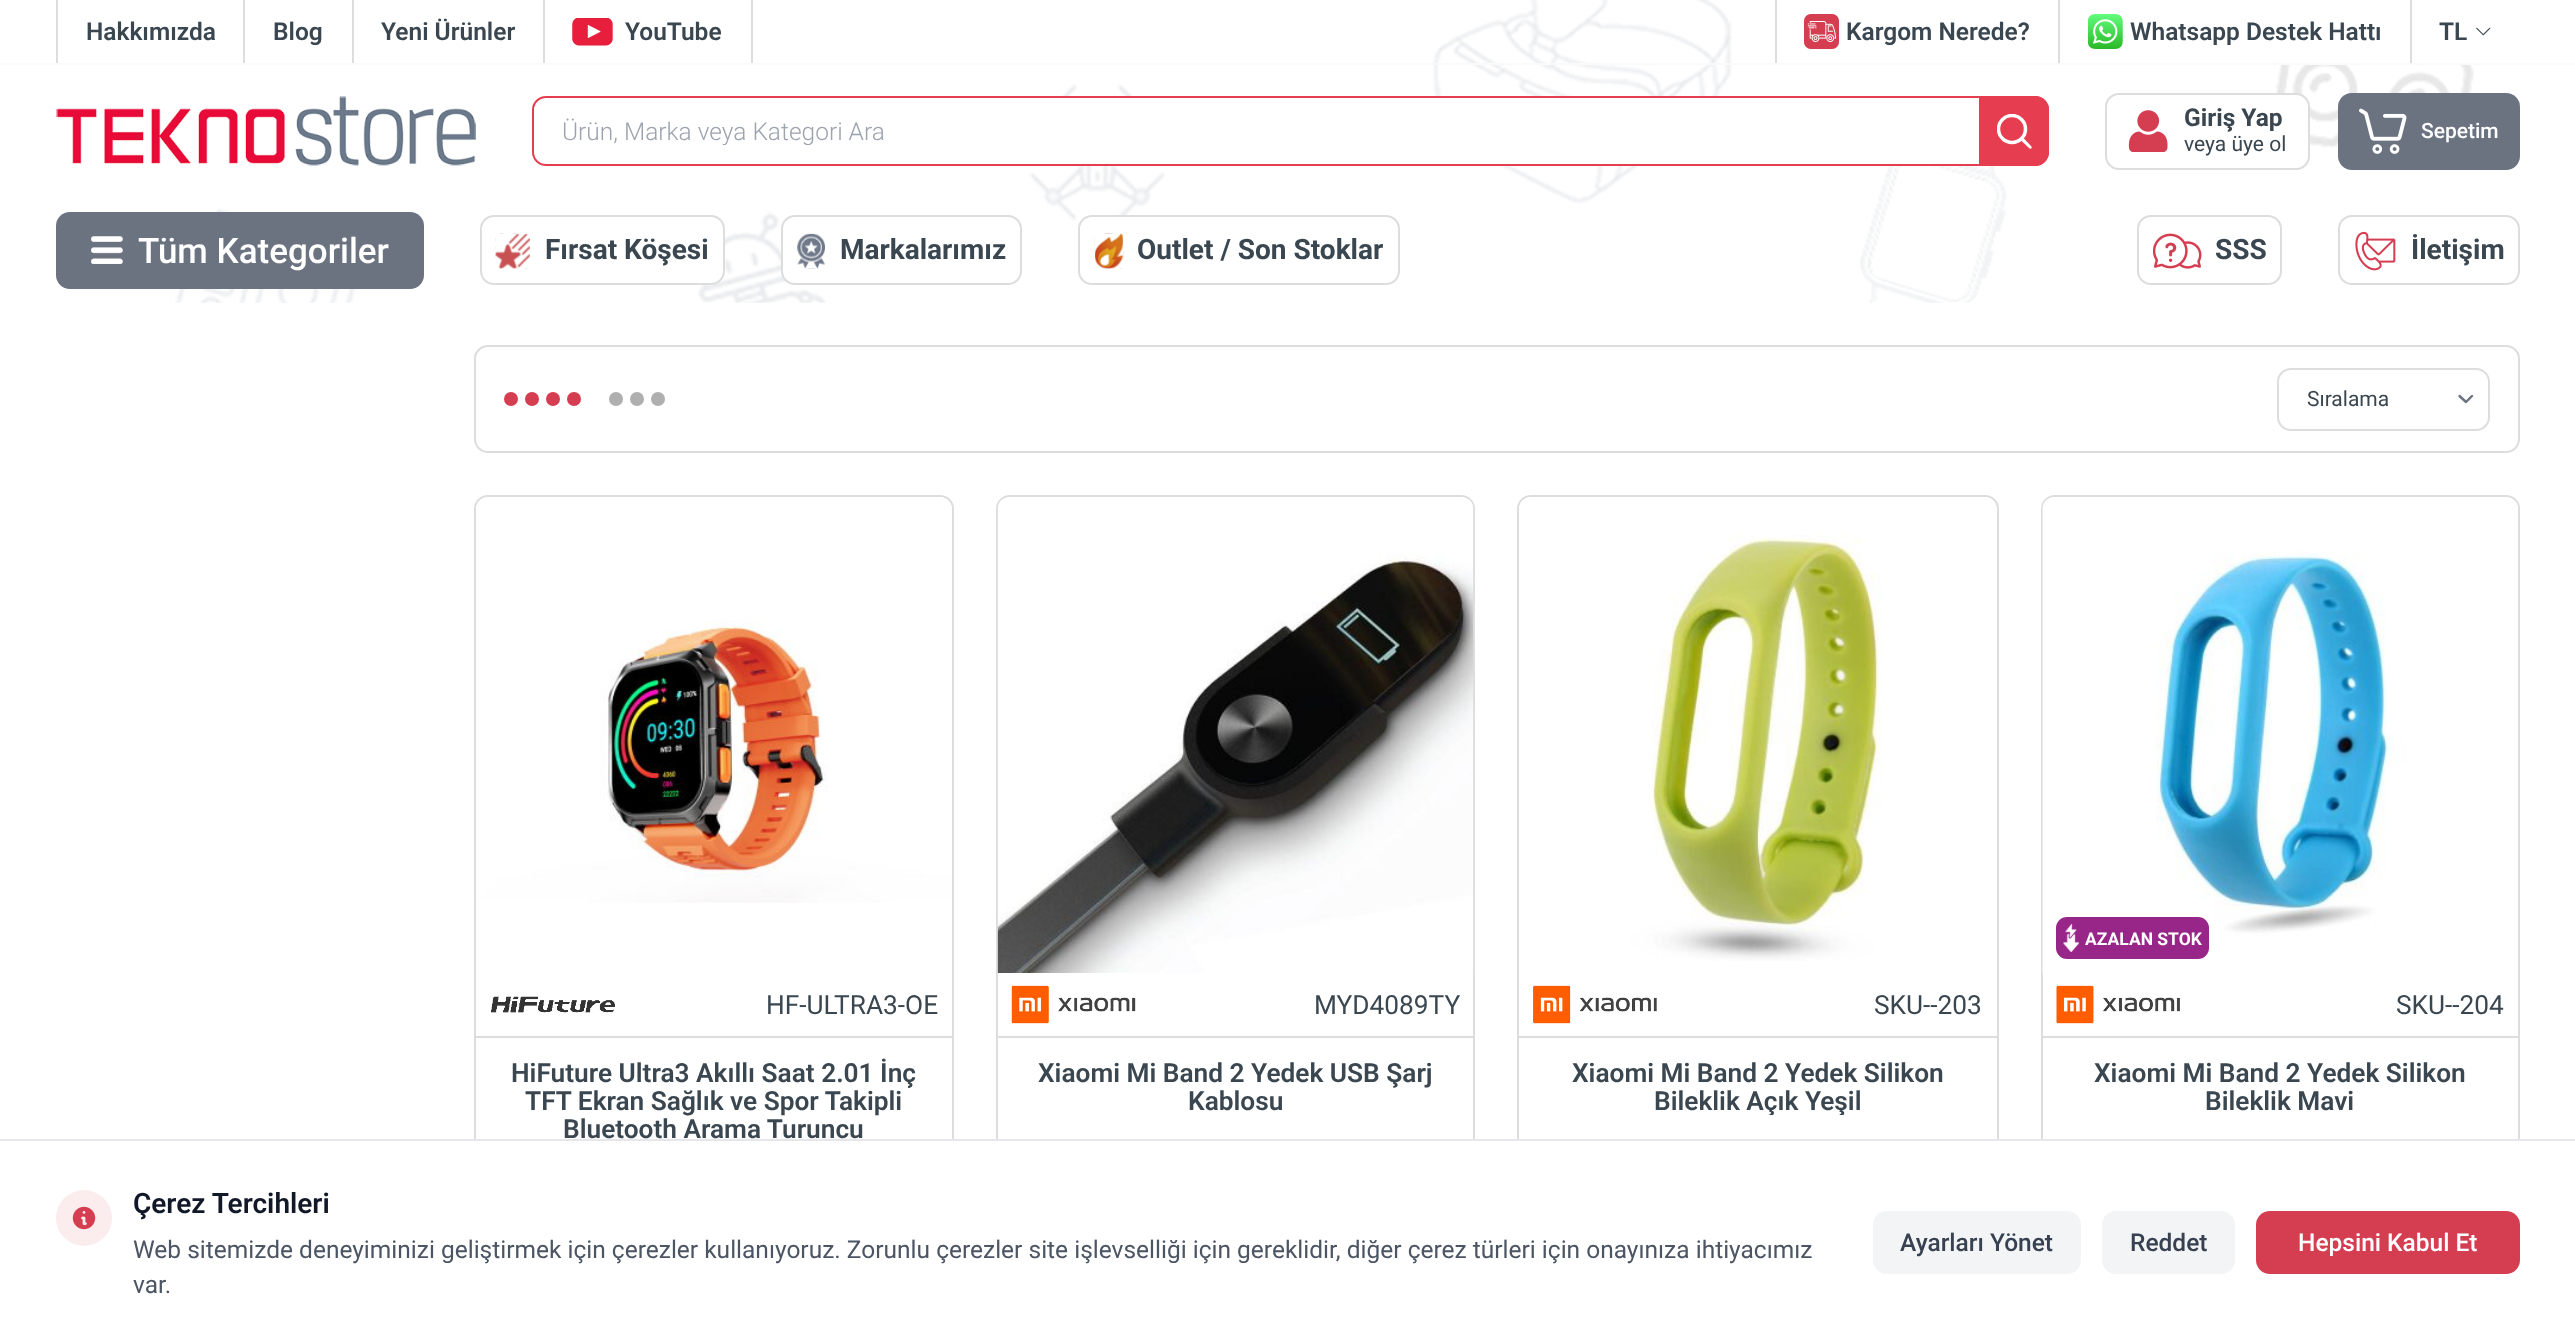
async function draw(canvas) {
  canvas.width = 2575
  canvas.height = 1344
  const ctx = canvas.getContext('2d')
  ctx.miterLimit = 4
  ctx.fontKerning = 'normal'
  async function loadImage(src) {
    const img = new Image()
    img.src = src
    await img.decode()
    return img
  }

  ctx.fillStyle = '#fff'
  ctx.fillRect(0, 0, 2575, 1344)
  ctx.drawImage(await loadImage('image0.png'), 175, 0, 2299, 303)
  ctx.fillStyle = '#fafafa'
  ctx.fillRect(0, 63, 2575, 2)
  ctx.fillStyle = '#fff'
  ctx.fillRect(503, 0, 138, 63)
  ctx.fillStyle = '#ddd'
  ctx.fillRect(243, 0, 2, 63)
  ctx.fillRect(56, 0, 2, 63)
  ctx.font = '600 24.5px Roboto'
  ctx.fillStyle = '#3a4750'
  ctx.fillText('Hakkımızda', 86, 40)
  ctx.fillStyle = '#ddd'
  ctx.fillRect(352, 0, 2, 63)
  ctx.fillStyle = '#3a4750'
  ctx.fillText('Blog', 273, 40)
  ctx.fillStyle = '#ddd'
  ctx.fillRect(543, 0, 2, 63)
  ctx.fillStyle = '#3a4750'
  ctx.fillText('Yeni Ürünler', 381, 40)
  ctx.fillStyle = '#ddd'
  ctx.fillRect(751, 0, 2, 63)
  ctx.drawImage(await loadImage('image1.png'), 572, 18, 41, 28)
  ctx.fillStyle = '#3a4750'
  ctx.fillText('YouTube', 625, 40)
  ctx.fillStyle = '#fff'
  ctx.fillRect(2280, 15, 190, 48)
  ctx.fillStyle = '#ddd'
  ctx.fillRect(2058, 0, 2, 63)
  ctx.fillRect(1775, 0, 2, 63)
  ctx.drawImage(await loadImage('image2.png'), 1804, 14, 35, 35)
  ctx.fillStyle = '#3a4750'
  ctx.fillText('Kargom Nerede?', 1846, 40)
  ctx.fillStyle = '#ddd'
  ctx.fillRect(2410, 0, 2, 63)
  ctx.drawImage(await loadImage('image3.png'), 2088, 14, 35, 35)
  ctx.fillStyle = '#3a4750'
  ctx.fillText('Whatsapp Destek Hattı', 2130, 40)
  ctx.fillText('TL', 2439, 40)
  ctx.drawImage(await loadImage('image4.png'), 2476, 27, 15, 9)
  ctx.drawImage(await loadImage('image5.png'), 56, 96, 420, 70)
  ctx.fillStyle = '#fff'
  ctx.beginPath()
  ctx.roundRect(533, 97, 1515, 68, 13)
  ctx.fill()
  ctx.strokeStyle = '#e73d50'
  ctx.lineWidth = 2
  ctx.stroke()
  ctx.save()
  ctx.beginPath()
  ctx.rect(562, 117, 1430, 28)
  ctx.clip()
  ctx.font = '300 24.5px Roboto'
  ctx.fillStyle = '#9ca3af'
  ctx.fillText('Ürün, Marka veya Kategori Ara', 562, 140)
  ctx.restore()
  ctx.fillStyle = '#e73d50'
  ctx.beginPath()
  ctx.roundRect(1979, 96, 70, 70, [0, 14, 14, 0])
  ctx.fill()
  ctx.save()
  ctx.beginPath()
  ctx.rect(1997, 114, 35, 35)
  ctx.clip()
  ctx.beginPath()
  ctx.arc(2012, 129, 13.5, 0, 2 * Math.PI)
  ctx.strokeStyle = '#fff'
  ctx.lineWidth = 3.5
  ctx.stroke()
  ctx.restore()
  ctx.fillStyle = '#fff'
  ctx.beginPath()
  ctx.moveTo(2029, 148)
  ctx.bezierCurveTo(2030.5, 150, 2033, 147.5, 2031, 146)
  ctx.closePath()
  ctx.moveTo(2021.5, 138.5)
  ctx.lineTo(2020.5, 140)
  ctx.lineTo(2029, 148)
  ctx.lineTo(2031, 146)
  ctx.lineTo(2023, 137.5)
  ctx.closePath()
  ctx.fill()
  ctx.beginPath()
  ctx.roundRect(2106, 94, 203, 75, 13)
  ctx.fill()
  ctx.strokeStyle = '#ddd'
  ctx.stroke()
  ctx.drawImage(await loadImage('image6.png'), 2128, 110, 40, 42)
  ctx.font = 'bold 24.5px Roboto'
  ctx.fillStyle = '#3a4750'
  ctx.fillText('Giriş Yap', 2184, 126)
  ctx.font = '21px Roboto'
  ctx.fillText('veya üye ol', 2184, 151)
  ctx.fillStyle = '#6b7280'
  ctx.beginPath()
  ctx.roundRect(2338, 93, 182, 77, 14)
  ctx.fill()
  ctx.drawImage(await loadImage('image7.png'), 2359, 108, 48, 46)
  ctx.font = '500 21px Roboto'
  ctx.fillStyle = '#fff'
  ctx.fillText('Sepetim', 2421, 138)
  ctx.fillStyle = '#6b7280'
  ctx.beginPath()
  ctx.roundRect(56, 212, 368, 77, 14)
  ctx.fill()
  ctx.drawImage(await loadImage('image8.png'), 91, 236, 32, 28)
  ctx.font = '500 35px Roboto'
  ctx.fillStyle = '#fff'
  ctx.fillText('Tüm Kategoriler', 138, 263)
  ctx.beginPath()
  ctx.roundRect(481, 216, 243, 68, 13)
  ctx.fill()
  ctx.stroke()
  ctx.drawImage(await loadImage('image9.png'), 495, 233, 35, 36)
  ctx.font = 'bold 28px Roboto'
  ctx.fillStyle = '#3a4750'
  ctx.fillText('Fırsat Köşesi', 545, 259)
  ctx.fillStyle = '#fff'
  ctx.beginPath()
  ctx.roundRect(782, 216, 239, 68, 13)
  ctx.fill()
  ctx.stroke()
  ctx.drawImage(await loadImage('image10.png'), 797, 233, 28, 36)
  ctx.fillStyle = '#3a4750'
  ctx.fillText('Markalarımız', 840, 259)
  ctx.fillStyle = '#fff'
  ctx.beginPath()
  ctx.roundRect(1079, 216, 320, 68, 13)
  ctx.fill()
  ctx.stroke()
  ctx.drawImage(await loadImage('image11.png'), 1094, 233, 30, 36)
  ctx.fillStyle = '#3a4750'
  ctx.fillText('Outlet / Son Stoklar', 1137, 259)
  ctx.beginPath()
  ctx.roundRect(2138, 216, 143, 68, 13)
  ctx.stroke()
  ctx.drawImage(await loadImage('image12.png'), 2153, 233, 49, 36)
  ctx.fillText('SSS', 2215, 259)
  ctx.beginPath()
  ctx.roundRect(2339, 216, 180, 68, 13)
  ctx.stroke()
  ctx.drawImage(await loadImage('image13.png'), 2355, 231, 41, 40)
  ctx.fillText('İletişim', 2411, 259)
  ctx.beginPath()
  ctx.roundRect(475, 346, 2044, 106, 13)
  ctx.stroke()
  ctx.fillStyle = '#d53d51'
  ctx.beginPath()
  ctx.arc(511, 399, 7, 0, 2 * Math.PI)
  ctx.fill()
  ctx.beginPath()
  ctx.arc(532, 399, 7, 0, 2 * Math.PI)
  ctx.fill()
  ctx.beginPath()
  ctx.arc(553, 399, 7, 0, 2 * Math.PI)
  ctx.fill()
  ctx.beginPath()
  ctx.arc(574, 399, 7, 0, 2 * Math.PI)
  ctx.fill()
  ctx.fillStyle = '#afafaf'
  ctx.beginPath()
  ctx.arc(616, 399, 7, 0, 2 * Math.PI)
  ctx.fill()
  ctx.beginPath()
  ctx.arc(637, 399, 7, 0, 2 * Math.PI)
  ctx.fill()
  ctx.beginPath()
  ctx.arc(658, 399, 7, 0, 2 * Math.PI)
  ctx.fill()
  ctx.beginPath()
  ctx.moveTo(2459.5, 396)
  ctx.lineTo(2466, 402)
  ctx.lineTo(2472, 396)
  ctx.strokeStyle = '#6b7280'
  ctx.lineWidth = 2.4
  ctx.lineCap = 'round'
  ctx.lineJoin = 'round'
  ctx.stroke()
  ctx.beginPath()
  ctx.roundRect(2278, 369, 211, 61, 13)
  ctx.strokeStyle = '#ddd'
  ctx.lineWidth = 2
  ctx.lineJoin = 'miter'
  ctx.stroke()
  ctx.font = '21px Roboto'
  ctx.fillStyle = '#3a4750'
  ctx.fillText('Sıralama', 2307, 406)
  ctx.beginPath()
  ctx.roundRect(475, 496, 478, 767, 13)
  ctx.stroke()
  ctx.drawImage(await loadImage('image14.png'), 476, 497, 476, 406)
  ctx.drawImage(await loadImage('image15.png'), 491, 996, 124, 17)
  ctx.font = '26.25px Roboto'
  ctx.fillText('HF-ULTRA3-OE', 766, 1014)
  ctx.fillStyle = '#ddd'
  ctx.fillRect(476, 1036, 476, 2)
  ctx.font = '600 26.25px Roboto'
  ctx.fillStyle = '#3a4750'
  ctx.fillText('HiFuture Ultra3 Akıllı Saat 2.01 İnç', 511, 1082)
  ctx.fillText('TFT Ekran Sağlık ve Spor Takipli', 525, 1110)
  ctx.fillText('Bluetooth Arama Turuncu', 563, 1138)
  ctx.beginPath()
  ctx.roundRect(997, 496, 477, 767, 13)
  ctx.stroke()
  ctx.drawImage(await loadImage('image16.png'), 997, 497, 477, 476)
  ctx.drawImage(await loadImage('image17.png'), 1011, 985, 125, 39)
  ctx.font = '26.25px Roboto'
  ctx.fillText('MYD4089TY', 1314, 1014)
  ctx.fillStyle = '#ddd'
  ctx.fillRect(998, 1036, 476, 2)
  ctx.font = '600 26.25px Roboto'
  ctx.fillStyle = '#3a4750'
  ctx.fillText('Xiaomi Mi Band 2 Yedek USB Şarj', 1038, 1082)
  ctx.fillText('Kablosu', 1188, 1110)
  ctx.beginPath()
  ctx.roundRect(1518, 496, 480, 767, 13)
  ctx.stroke()
  ctx.drawImage(await loadImage('image18.png'), 1519, 497, 475, 464)
  ctx.drawImage(await loadImage('image19.png'), 1533, 985, 124, 39)
  ctx.font = '26.25px Roboto'
  ctx.fillText('SKU--203', 1874, 1014)
  ctx.fillStyle = '#ddd'
  ctx.fillRect(1519, 1036, 478, 2)
  ctx.font = '600 26.25px Roboto'
  ctx.fillStyle = '#3a4750'
  ctx.fillText('Xiaomi Mi Band 2 Yedek Silikon', 1572, 1082)
  ctx.save()
  ctx.beginPath()
  ctx.rect(1540, 1059, 436, 56)
  ctx.clip()
  ctx.fillText('Bileklik Açık Yeşil', 1654, 1110)
  ctx.restore()
  ctx.beginPath()
  ctx.roundRect(2042, 496, 477, 767, 13)
  ctx.stroke()
  ctx.drawImage(await loadImage('image20.png'), 2042, 497, 476, 476)
  ctx.fillStyle = '#982689'
  ctx.beginPath()
  ctx.roundRect(2056, 917, 153, 42, 11)
  ctx.fill()
  ctx.drawImage(await loadImage('image21.png'), 2063, 924, 16, 28)
  ctx.font = 'bold 17.5px Roboto'
  ctx.fillStyle = '#fff'
  ctx.fillText('AZALAN STOK', 2085, 945)
  ctx.drawImage(await loadImage('image22.png'), 2056, 985, 124, 39)
  ctx.font = '26.25px Roboto'
  ctx.fillStyle = '#3a4750'
  ctx.fillText('SKU--204', 2396, 1014)
  ctx.fillStyle = '#ddd'
  ctx.fillRect(2042, 1036, 476, 2)
  ctx.font = '600 26.25px Roboto'
  ctx.fillStyle = '#3a4750'
  ctx.fillText('Xiaomi Mi Band 2 Yedek Silikon', 2094, 1082)
  ctx.fillText('Bileklik Mavi', 2205, 1110)
  ctx.fillStyle = '#fff'
  ctx.fillRect(474, 1141, 2046, 123)
  ctx.fillStyle = '#e5e7eb'
  ctx.fillRect(0, 1139, 2575, 2)
  ctx.fillStyle = '#fbecee'
  ctx.beginPath()
  ctx.arc(84, 1218, 28, 0, 2 * Math.PI)
  ctx.fill()
  ctx.drawImage(await loadImage('image23.png'), 72, 1206, 24, 24)
  ctx.font = '600 28px Roboto'
  ctx.fillStyle = '#111827'
  ctx.fillText('Çerez Tercihleri', 133, 1213)
  ctx.font = '24.5px Roboto'
  ctx.fillStyle = '#4b5563'
  ctx.fillText('Web sitemizde deneyiminizi geliştirmek için çerezler kullanıyoruz. Zorunlu çerezler site işlevselliği için gereklidir, diğer çerez türleri için onayınıza ihtiyacımız', 133, 1258)
  ctx.fillText('var.', 133, 1293)
  ctx.fillStyle = '#f3f4f6'
  ctx.beginPath()
  ctx.roundRect(1873, 1211, 208, 63, 14)
  ctx.fill()
  ctx.font = '500 24.5px Roboto'
  ctx.fillStyle = '#374151'
  ctx.fillText('Ayarları Yönet', 1900, 1251)
  ctx.fillStyle = '#f3f4f6'
  ctx.beginPath()
  ctx.roundRect(2102, 1211, 133, 63, 14)
  ctx.fill()
  ctx.fillStyle = '#374151'
  ctx.fillText('Reddet', 2130, 1251)
  ctx.fillStyle = '#d53d51'
  ctx.beginPath()
  ctx.roundRect(2256, 1211, 264, 63, 14)
  ctx.fill()
  ctx.fillStyle = '#fff'
  ctx.fillText('Hepsini Kabul Et', 2298, 1251)
}

draw(document.querySelector('canvas'))
